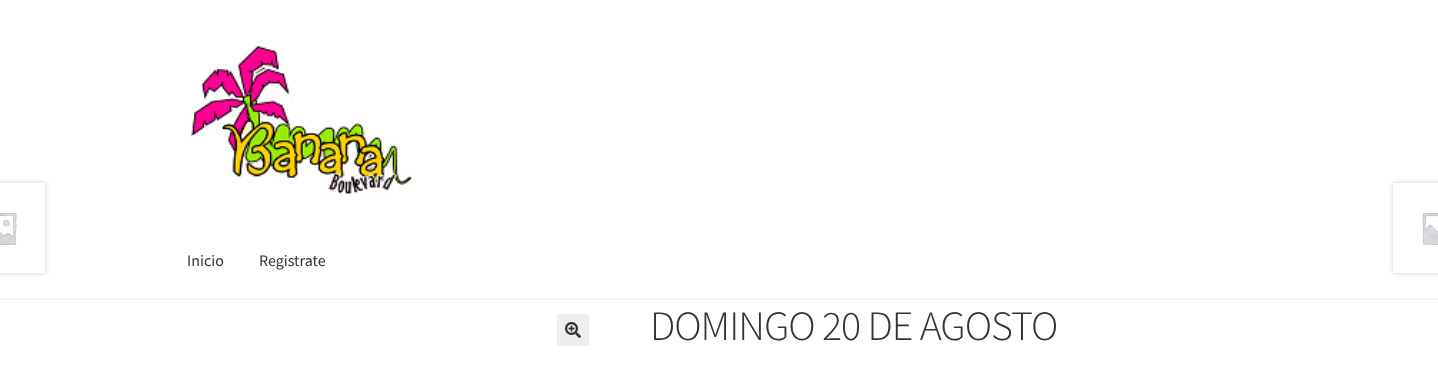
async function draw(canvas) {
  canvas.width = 1438
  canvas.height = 366
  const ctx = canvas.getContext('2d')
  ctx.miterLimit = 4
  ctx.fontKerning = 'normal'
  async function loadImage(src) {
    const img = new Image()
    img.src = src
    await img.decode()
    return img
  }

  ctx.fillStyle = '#fff'
  ctx.fillRect(0, 0, 1438, 366)
  ctx.fillStyle = '#f0f0f0'
  ctx.fillRect(0, 299, 1438, 1)
  ctx.drawImage(await loadImage('image0.png'), 191, 46, 221, 148)
  ctx.font = '16px Source Sans Pro'
  ctx.fillStyle = '#333'
  ctx.fillText('Inicio', 187, 266)
  ctx.fillText('Registrate', 259, 266)
  ctx.save()
  ctx.beginPath()
  ctx.moveTo(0, 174)
  ctx.lineTo(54, 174)
  ctx.lineTo(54, 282)
  ctx.lineTo(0, 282)
  ctx.closePath()
  ctx.moveTo(-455, 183)
  ctx.lineTo(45, 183)
  ctx.lineTo(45, 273)
  ctx.lineTo(-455, 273)
  ctx.closePath()
  ctx.clip('evenodd')
  ctx.fillStyle = '#00000033'
  ctx.filter = 'blur(2.5px)'
  ctx.beginPath()
  ctx.rect(-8, 183, 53, 90)
  ctx.fill()
  ctx.filter = 'none'
  ctx.restore()
  ctx.drawImage(await loadImage('image1.png'), 0, 213, 17, 32)
  ctx.save()
  ctx.beginPath()
  ctx.moveTo(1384, 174)
  ctx.lineTo(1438, 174)
  ctx.lineTo(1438, 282)
  ctx.lineTo(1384, 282)
  ctx.closePath()
  ctx.moveTo(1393, 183)
  ctx.lineTo(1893, 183)
  ctx.lineTo(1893, 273)
  ctx.lineTo(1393, 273)
  ctx.closePath()
  ctx.clip('evenodd')
  ctx.fillStyle = '#00000033'
  ctx.filter = 'blur(2.5px)'
  ctx.beginPath()
  ctx.rect(1393, 183, 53, 90)
  ctx.fill()
  ctx.filter = 'none'
  ctx.restore()
  ctx.drawImage(await loadImage('image2.png'), 1422, 213, 16, 32)
  ctx.fillStyle = '#eee'
  ctx.beginPath()
  ctx.roundRect(557, 314, 32, 32, 3)
  ctx.fill()
  ctx.drawImage(await loadImage('image3.png'), 565, 322, 16, 16)
  ctx.letterSpacing = '-1px'
  ctx.font = '300 41.9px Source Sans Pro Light'
  ctx.fillStyle = '#333'
  ctx.fillText('DOMINGO 20 DE AGOSTO', 650, 340)
}

draw(document.querySelector('canvas'))
